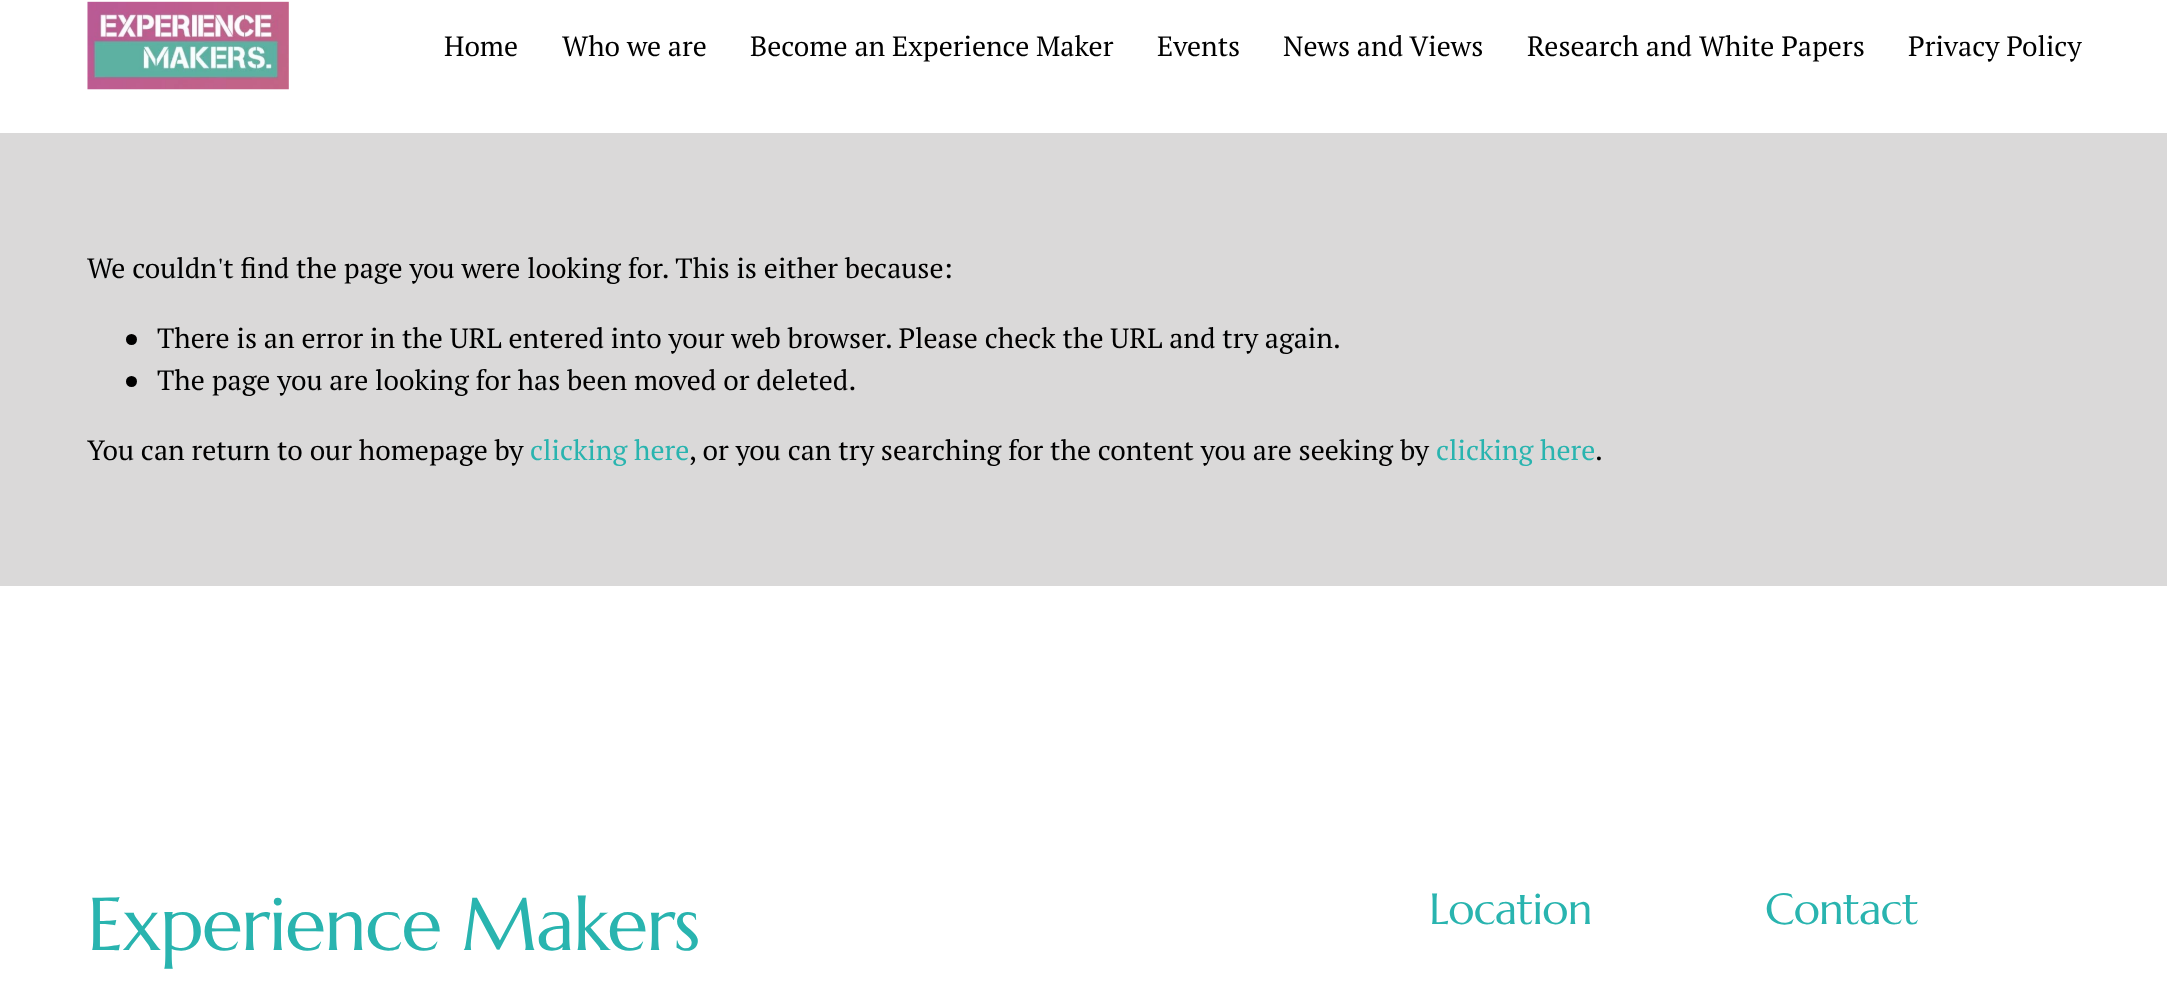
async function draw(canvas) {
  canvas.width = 2167
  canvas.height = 994
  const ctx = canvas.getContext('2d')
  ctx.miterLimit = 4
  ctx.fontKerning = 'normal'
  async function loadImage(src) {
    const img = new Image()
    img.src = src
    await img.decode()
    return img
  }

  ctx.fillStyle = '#dad9d9'
  ctx.fillRect(0, 0, 2167, 994)
  ctx.fillStyle = '#fff'
  ctx.fillRect(0, 0, 2167, 133)
  ctx.drawImage(await loadImage('image0.png'), 87, 1, 202, 89)
  ctx.font = '28px PT Serif'
  ctx.fillStyle = '#000'
  ctx.fillText('Home', 444, 56)
  ctx.fillText('Who we are', 562, 56)
  ctx.fillText('Become an Experience Maker', 750, 56)
  ctx.fillText('Events', 1157, 56)
  ctx.fillText('News and Views', 1283, 56)
  ctx.fillText('Research and White Papers', 1527, 56)
  ctx.fillText('Privacy Policy', 1908, 56)
  ctx.fillText('We couldn\'t find the page you were looking for. This is either because:', 87, 278)
  ctx.beginPath()
  ctx.arc(131.5, 339.5, 5.5, 0, 2 * Math.PI)
  ctx.fill()
  ctx.fillText('There is an error in the URL entered into your web browser. Please check the URL and try again.', 157, 348)
  ctx.beginPath()
  ctx.arc(131.5, 381.5, 5.5, 0, 2 * Math.PI)
  ctx.fill()
  ctx.fillText('The page you are looking for has been moved or deleted.', 157, 390)
  ctx.fillText('You can return to our homepage by', 87, 460)
  ctx.fillStyle = '#29b4af'
  ctx.fillText('clicking here', 530, 460)
  ctx.fillStyle = '#000'
  ctx.fillText(', or you can try searching for the content you are seeking by', 689, 460)
  ctx.fillStyle = '#29b4af'
  ctx.fillText('clicking here', 1436, 460)
  ctx.fillStyle = '#000'
  ctx.fillText('.', 1595, 460)
  ctx.fillStyle = '#fff'
  ctx.fillRect(0, 586, 2167, 408)
  ctx.letterSpacing = '-1.5px'
  ctx.font = '74.75px Marcellus'
  ctx.fillStyle = '#29b4af'
  ctx.fillText('Experience Makers', 87, 950)
  ctx.letterSpacing = '-0.75px'
  ctx.font = '43.5px Marcellus'
  ctx.fillText('Location', 1429, 924)
  ctx.fillText('Contact', 1765, 924)
}

draw(document.querySelector('canvas'))
